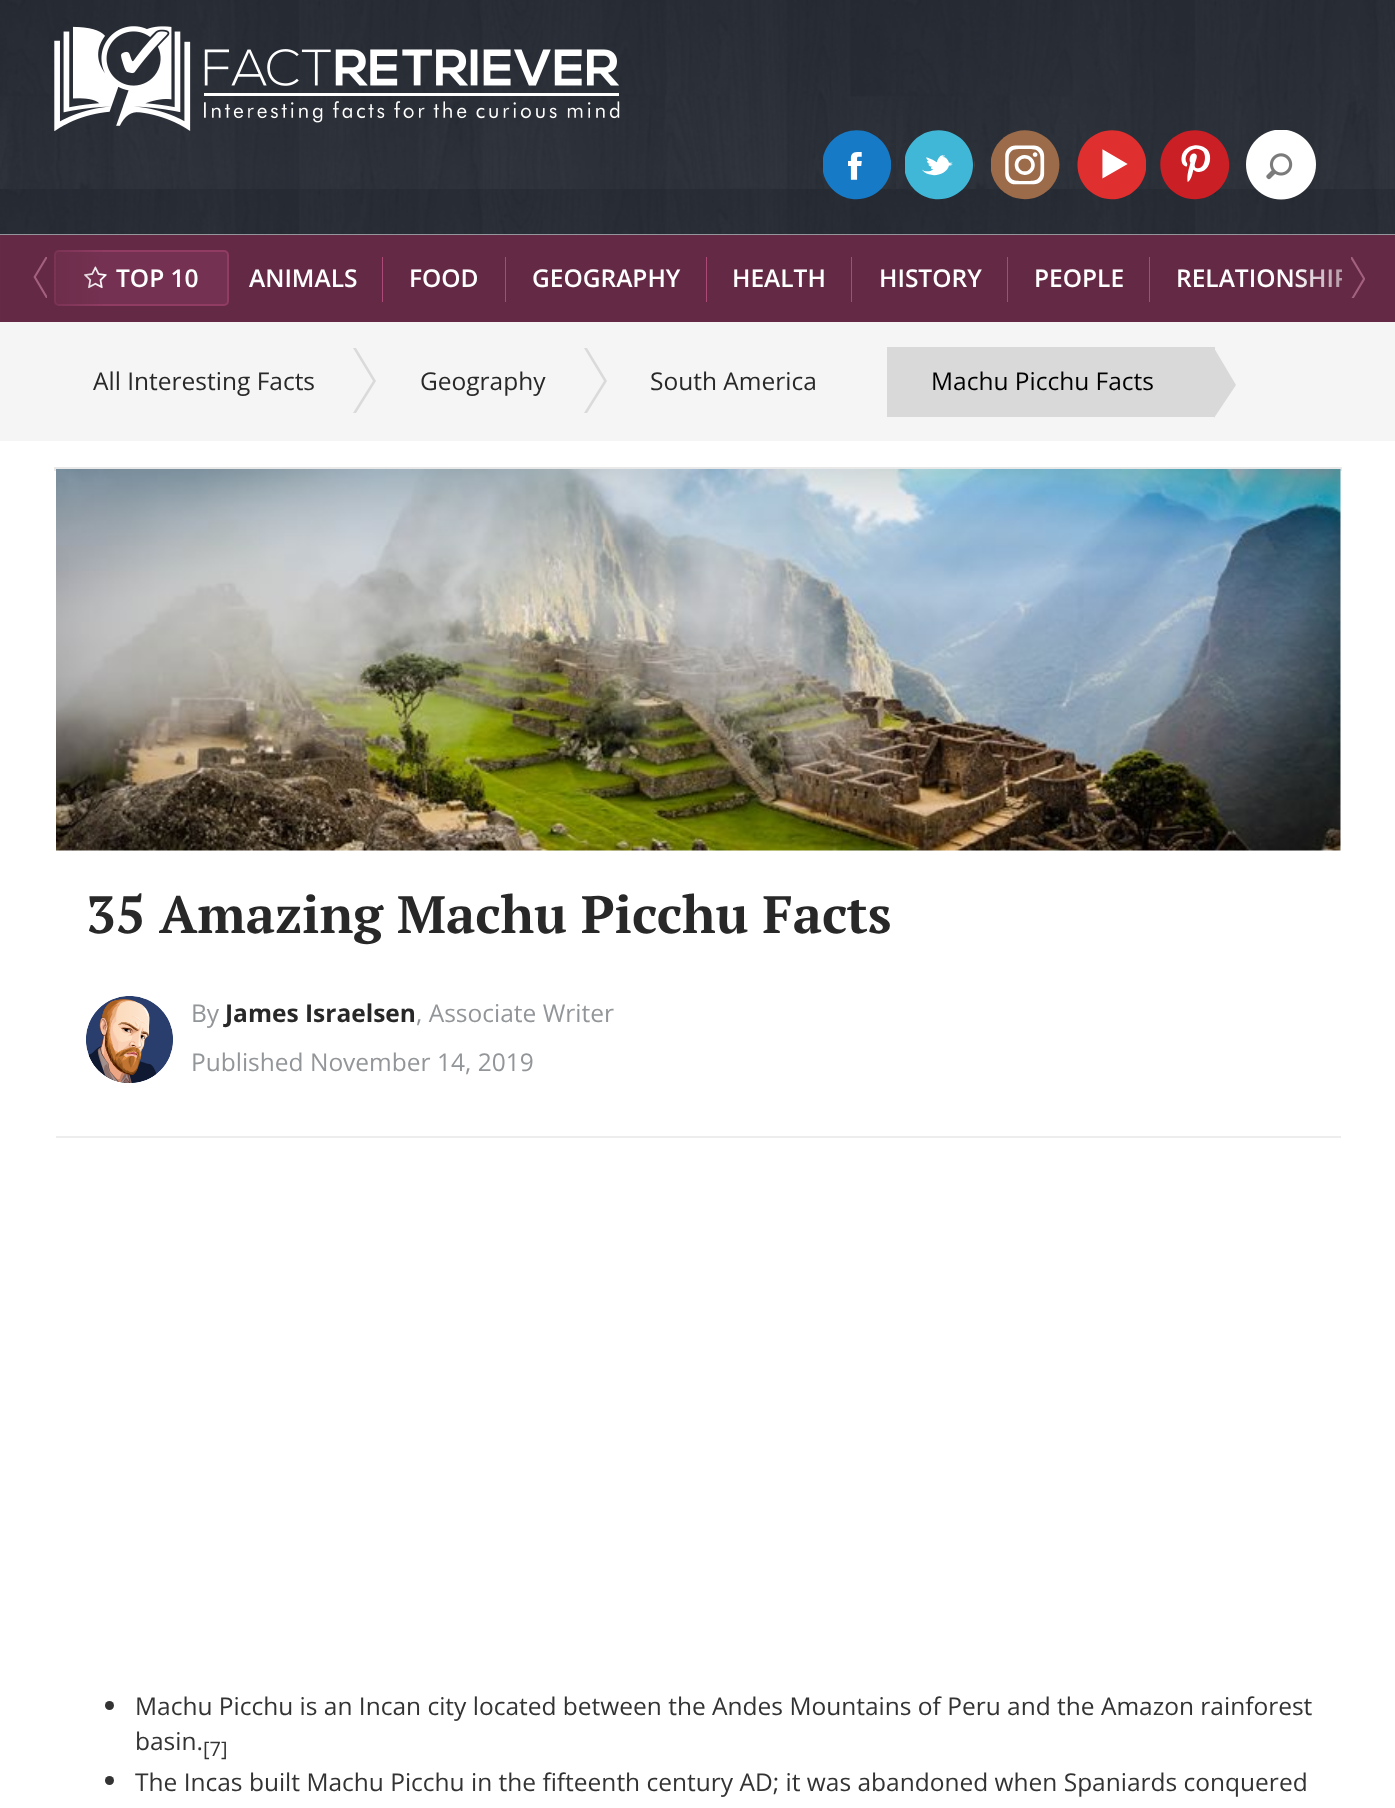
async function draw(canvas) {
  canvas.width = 1395
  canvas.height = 1808
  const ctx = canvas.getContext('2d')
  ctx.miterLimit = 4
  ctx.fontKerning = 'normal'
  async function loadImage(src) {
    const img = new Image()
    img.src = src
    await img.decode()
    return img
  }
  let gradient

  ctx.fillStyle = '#fff'
  ctx.fillRect(0, 0, 1395, 1808)
  ctx.drawImage(await loadImage('image0.png'), 0, 0, 1395, 235)
  ctx.drawImage(await loadImage('image1.png'), 54, 26, 566, 105)
  ctx.drawImage(await loadImage('image2.png'), 823, 130, 68, 70)
  ctx.drawImage(await loadImage('image3.png'), 905, 130, 70, 70)
  ctx.drawImage(await loadImage('image4.png'), 991, 130, 69, 70)
  ctx.drawImage(await loadImage('image5.png'), 1077, 130, 69, 70)
  ctx.drawImage(await loadImage('image6.png'), 1160, 130, 70, 70)
  ctx.drawImage(await loadImage('image7.png'), 1246, 130, 70, 70)
  ctx.fillStyle = '#642a45'
  ctx.fillRect(1, 235, 1394, 87)
  ctx.fillStyle = '#753151'
  ctx.beginPath()
  ctx.roundRect(55, 251, 173, 54, 4)
  ctx.fill()
  ctx.strokeStyle = '#903c63'
  ctx.lineWidth = 2
  ctx.stroke()
  ctx.drawImage(await loadImage('image9.png'), 84, 266, 23, 23)
  gradient = ctx.createLinearGradient(105, 278, 0, 278)
  gradient.addColorStop(0, '#642a4500')
  gradient.addColorStop(1, '#642a45')
  ctx.fillStyle = gradient
  ctx.fillRect(0, 235, 103, 87)
  ctx.drawImage(await loadImage('image8.png'), 33, 257, 14, 41)
  ctx.font = '600 24.5px Open Sans'
  ctx.fillStyle = '#fff'
  ctx.fillText('TOP 10', 116, 287)
  ctx.fillStyle = '#ac4976'
  ctx.fillRect(382, 257, 1, 45)
  ctx.fillStyle = '#fff'
  ctx.fillText('ANIMALS', 249, 287)
  ctx.fillStyle = '#ac4976'
  ctx.fillRect(505, 257, 1, 45)
  ctx.fillStyle = '#fff'
  ctx.fillText('FOOD', 409, 287)
  ctx.fillStyle = '#ac4976'
  ctx.fillRect(706, 257, 1, 45)
  ctx.fillStyle = '#fff'
  ctx.fillText('GEOGRAPHY', 532, 287)
  ctx.fillStyle = '#ac4976'
  ctx.fillRect(851, 257, 1, 45)
  ctx.fillStyle = '#fff'
  ctx.fillText('HEALTH', 732, 287)
  ctx.fillStyle = '#ac4976'
  ctx.fillRect(1007, 257, 1, 45)
  ctx.fillStyle = '#fff'
  ctx.fillText('HISTORY', 879, 287)
  ctx.fillStyle = '#ac4976'
  ctx.fillRect(1149, 257, 1, 45)
  ctx.fillStyle = '#fff'
  ctx.fillText('PEOPLE', 1034, 287)
  ctx.save()
  ctx.beginPath()
  ctx.rect(54, 235, 1288, 87)
  ctx.clip()
  ctx.fillText('RELATIONSHIP', 1176, 287)
  ctx.restore()
  gradient = ctx.createLinearGradient(1292, 278, 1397, 278)
  gradient.addColorStop(0, '#642a4500')
  gradient.addColorStop(1, '#642a45')
  ctx.fillStyle = gradient
  ctx.fillRect(1296, 269, 46, 19)
  ctx.drawImage(await loadImage('image10.png'), 1351, 257, 14, 41)
  ctx.fillStyle = '#f5f5f5'
  ctx.fillRect(0, 322, 1395, 119)
  ctx.fillStyle = '#dadada'
  ctx.beginPath()
  ctx.moveTo(356, 348)
  ctx.lineTo(353, 348)
  ctx.lineTo(373, 381)
  ctx.lineTo(353, 413)
  ctx.lineTo(356, 413)
  ctx.lineTo(376, 381)
  ctx.fill('evenodd')
  ctx.font = '24.5px Open Sans'
  ctx.fillStyle = '#282828'
  ctx.fillText('All Interesting Facts', 93, 390)
  ctx.fillStyle = '#dadada'
  ctx.beginPath()
  ctx.moveTo(587, 348)
  ctx.lineTo(584, 348)
  ctx.lineTo(604, 381)
  ctx.lineTo(584, 413)
  ctx.lineTo(587, 413)
  ctx.lineTo(607, 381)
  ctx.fill('evenodd')
  ctx.fillStyle = '#282828'
  ctx.fillText('Geography', 420, 390)
  ctx.fillText('South America', 650, 390)
  ctx.fillStyle = '#d9d9d9'
  ctx.fillRect(887, 347, 328, 70)
  ctx.fillStyle = '#000'
  ctx.fillText('Machu Picchu Facts', 931, 390)
  ctx.fillStyle = '#d9d9d9'
  ctx.beginPath()
  ctx.moveTo(1214, 348)
  ctx.lineTo(1236, 385)
  ctx.lineTo(1214, 418)
  ctx.closePath()
  ctx.fill('evenodd')
  ctx.fillStyle = '#e9e9e9'
  ctx.fillRect(54, 467, 1288, 4)
  ctx.drawImage(await loadImage('image11.png'), 56, 469, 1285, 382)
  ctx.font = 'bold 52.5px PT Serif'
  ctx.fillStyle = '#282828'
  ctx.fillText('35 Amazing Machu Picchu Facts', 86, 933)
  ctx.fillStyle = '#ededed'
  ctx.fillRect(56, 1136, 1285, 2)
  ctx.drawImage(await loadImage('image12.png'), 86, 996, 87, 87)
  ctx.font = '24.5px Open Sans'
  ctx.fillStyle = '#939699'
  ctx.fillText('By', 191, 1022)
  ctx.font = 'bold 24.5px Open Sans'
  ctx.fillStyle = '#282828'
  ctx.fillText('James Israelsen', 225, 1022)
  ctx.font = '24.5px Open Sans'
  ctx.fillStyle = '#939699'
  ctx.fillText(', Associate Writer', 416, 1022)
  ctx.fillText('Published November 14, 2019', 191, 1071)
  ctx.fillStyle = '#333'
  ctx.beginPath()
  ctx.arc(109.5, 1705.5, 4.5, 0, 2 * Math.PI)
  ctx.fill()
  ctx.fillText('Machu Picchu is an Incan city located between the Andes Mountains of Peru and the Amazon rainforest', 135, 1715)
  ctx.fillText('basin.', 135, 1750)
  ctx.font = '20px Open Sans'
  ctx.fillText('[7]', 203, 1756)
  ctx.beginPath()
  ctx.arc(109.5, 1780.5, 4.5, 0, 2 * Math.PI)
  ctx.fill()
  ctx.font = '24.5px Open Sans'
  ctx.fillText('The Incas built Machu Picchu in the fifteenth century AD; it was abandoned when Spaniards conquered', 135, 1791)
}

draw(document.querySelector('canvas'))
